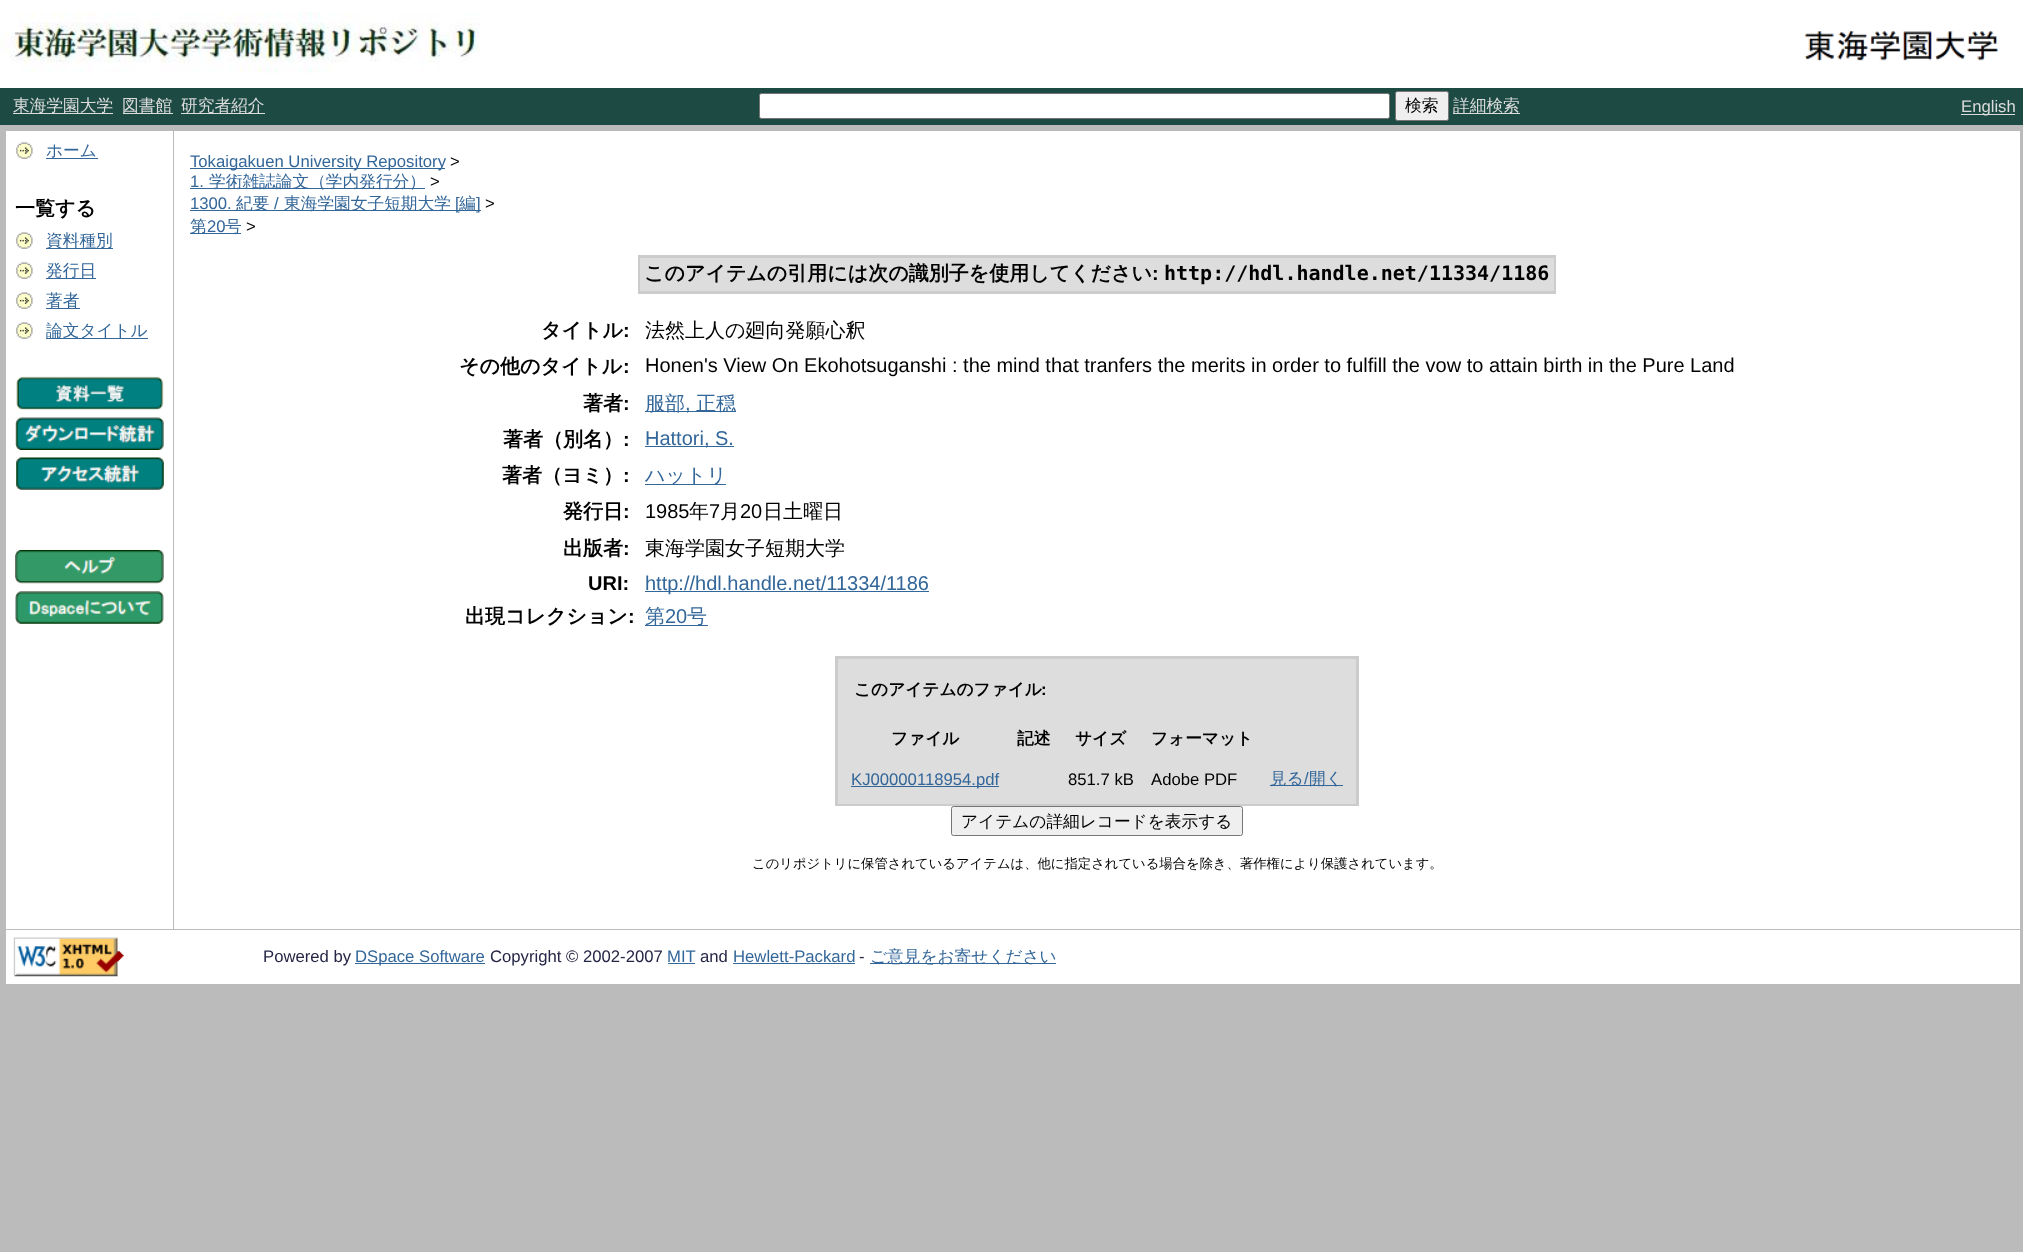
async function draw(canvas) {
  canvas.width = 2023
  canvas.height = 1252
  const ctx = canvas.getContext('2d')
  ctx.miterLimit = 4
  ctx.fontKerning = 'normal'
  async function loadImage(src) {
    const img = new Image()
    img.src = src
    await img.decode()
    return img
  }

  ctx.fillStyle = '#bbb'
  ctx.fillRect(0, 0, 2023, 1252)
  ctx.fillStyle = '#fff'
  ctx.fillRect(0, 0, 2023, 88)
  ctx.drawImage(await loadImage('image0.png'), 0, 12, 480, 61)
  ctx.drawImage(await loadImage('image1.png'), 1804, 30, 194, 31)
  ctx.fillStyle = '#1d4b44'
  ctx.fillRect(0, 88, 2023, 37)
  ctx.fillStyle = '#dcdcdc'
  ctx.fillRect(13, 113, 100, 1)
  ctx.font = '500 16.7px WenQuanYi Zen Hei'
  ctx.fillText('東海学園大学', 13, 111)
  ctx.fillRect(123, 113, 50, 1)
  ctx.fillText('図書館', 122, 111)
  ctx.fillRect(181, 113, 84, 1)
  ctx.fillText('研究者紹介', 181, 111)
  ctx.fillStyle = '#fff'
  ctx.beginPath()
  ctx.roundRect(759.5, 93.5, 630, 25, 2)
  ctx.fill()
  ctx.strokeStyle = '#767676'
  ctx.stroke()
  ctx.fillStyle = '#efefef'
  ctx.beginPath()
  ctx.roundRect(1395.5, 91.5, 53, 29, 2)
  ctx.fill()
  ctx.stroke()
  ctx.fillStyle = '#000'
  ctx.fillText('検索', 1405, 111)
  ctx.fillStyle = '#dcdcdc'
  ctx.fillRect(1453, 113, 67, 1)
  ctx.fillText('詳細検索', 1453, 111)
  ctx.fillRect(1961, 114, 54, 1)
  ctx.font = '16.7px Liberation Sans'
  ctx.fillText('English', 1961, 112)
  ctx.fillStyle = '#fff'
  ctx.fillRect(6, 131, 167, 798)
  ctx.drawImage(await loadImage('image2.png'), 16, 142, 17, 17)
  ctx.font = '500 16.7px WenQuanYi Zen Hei'
  ctx.fillStyle = '#369'
  ctx.fillText('ホーム', 46, 156)
  ctx.fillRect(46, 158, 52, 1)
  ctx.font = 'bold 20px WenQuanYi Zen Hei'
  ctx.fillStyle = '#000'
  ctx.fillText('一覧する', 15, 215)
  ctx.drawImage(await loadImage('image2.png'), 16, 232, 17, 17)
  ctx.fillStyle = '#369'
  ctx.fillRect(46, 248, 67, 1)
  ctx.font = '500 16.7px WenQuanYi Zen Hei'
  ctx.fillText('資料種別', 46, 246)
  ctx.drawImage(await loadImage('image2.png'), 16, 262, 17, 17)
  ctx.fillRect(46, 278, 50, 1)
  ctx.fillText('発行日', 46, 276)
  ctx.drawImage(await loadImage('image3.png'), 16, 292, 17, 17)
  ctx.fillRect(46, 308, 34, 1)
  ctx.fillText('著者', 46, 306)
  ctx.drawImage(await loadImage('image2.png'), 16, 322, 17, 17)
  ctx.fillRect(46, 338, 102, 1)
  ctx.fillText('論文タイトル', 46, 336)
  ctx.drawImage(await loadImage('image4.png'), 16, 376, 148, 34)
  ctx.drawImage(await loadImage('image5.png'), 15, 417, 149, 33)
  ctx.drawImage(await loadImage('image6.png'), 16, 457, 148, 33)
  ctx.drawImage(await loadImage('image7.png'), 15, 550, 149, 34)
  ctx.drawImage(await loadImage('image8.png'), 15, 591, 149, 33)
  ctx.fillStyle = '#fff'
  ctx.fillRect(174, 131, 1846, 798)
  ctx.fillStyle = '#369'
  ctx.fillRect(190, 168, 255, 1)
  ctx.font = '16.7px Liberation Sans'
  ctx.fillText('Tokaigakuen University Repository', 190, 167)
  ctx.fillStyle = '#000'
  ctx.fillText('>', 450, 167)
  ctx.fillStyle = '#369'
  ctx.fillText('1.', 190, 187)
  ctx.fillRect(190, 188, 235, 1)
  ctx.font = '500 16.7px WenQuanYi Zen Hei'
  ctx.fillText('学術雑誌論文（学内発行分）', 209, 187)
  ctx.font = '16.7px Liberation Sans'
  ctx.fillStyle = '#000'
  ctx.fillText('>', 430, 187)
  ctx.fillStyle = '#369'
  ctx.fillText('1300.', 190, 209)
  ctx.fillRect(190, 210, 291, 1)
  ctx.font = '500 16.7px WenQuanYi Zen Hei'
  ctx.fillText('紀要', 236, 209)
  ctx.font = '16.7px Liberation Sans'
  ctx.fillText('/', 274, 209)
  ctx.font = '500 16.7px WenQuanYi Zen Hei'
  ctx.fillText('東海学園女子短期大学', 284, 209)
  ctx.font = '16.7px Liberation Sans'
  ctx.fillText('[', 455, 209)
  ctx.font = '500 16.7px WenQuanYi Zen Hei'
  ctx.fillText('編', 459, 209)
  ctx.font = '16.7px Liberation Sans'
  ctx.fillText(']', 476, 209)
  ctx.fillStyle = '#000'
  ctx.fillText('>', 485, 209)
  ctx.fillStyle = '#369'
  ctx.fillRect(190, 233, 51, 1)
  ctx.font = '500 16.7px WenQuanYi Zen Hei'
  ctx.fillText('第', 190, 232)
  ctx.font = '16.7px Liberation Sans'
  ctx.fillText('20', 207, 232)
  ctx.font = '500 16.7px WenQuanYi Zen Hei'
  ctx.fillText('号', 225, 232)
  ctx.font = '16.7px Liberation Sans'
  ctx.fillStyle = '#000'
  ctx.fillText('>', 246, 232)
  ctx.fillStyle = '#ccc'
  ctx.fillRect(638, 255, 918, 39)
  ctx.fillStyle = '#ddd'
  ctx.fillRect(640, 258, 914, 33)
  ctx.font = 'bold 20px WenQuanYi Zen Hei'
  ctx.fillStyle = '#000'
  ctx.fillText('このアイテムの引用には次の識別子を使用してください', 644, 280)
  ctx.font = 'bold 20px Liberation Sans'
  ctx.fillText(':', 1152, 280)
  ctx.font = 'bold 20px DejaVu Sans Mono'
  ctx.fillText('http://hdl.handle.net/11334/1186', 1164, 280)
  ctx.font = 'bold 20px WenQuanYi Zen Hei'
  ctx.fillText('タイトル', 541, 337)
  ctx.font = 'bold 20px Liberation Sans'
  ctx.fillText(':', 623, 337)
  ctx.font = '500 20px WenQuanYi Zen Hei'
  ctx.fillText('法然上人の廻向発願心釈', 645, 337)
  ctx.font = 'bold 20px WenQuanYi Zen Hei'
  ctx.fillText('その他のタイトル', 459, 373)
  ctx.font = 'bold 20px Liberation Sans'
  ctx.fillText(':', 623, 373)
  ctx.font = '20px Liberation Sans'
  ctx.fillText('Honen\'s View On Ekohotsuganshi : the mind that tranfers the merits in order to fulfill the vow to attain birth in the Pure Land', 645, 372)
  ctx.font = 'bold 20px WenQuanYi Zen Hei'
  ctx.fillText('著者', 583, 410)
  ctx.font = 'bold 20px Liberation Sans'
  ctx.fillText(':', 623, 410)
  ctx.fillStyle = '#369'
  ctx.fillRect(645, 411, 91, 1)
  ctx.font = '500 20px WenQuanYi Zen Hei'
  ctx.fillText('服部', 645, 410)
  ctx.font = '20px Liberation Sans'
  ctx.fillText(',', 685, 410)
  ctx.font = '500 20px WenQuanYi Zen Hei'
  ctx.fillText('正穏', 696, 410)
  ctx.font = 'bold 20px WenQuanYi Zen Hei'
  ctx.fillStyle = '#000'
  ctx.fillText('著者（別名）', 503, 446)
  ctx.font = 'bold 20px Liberation Sans'
  ctx.fillText(':', 623, 446)
  ctx.fillStyle = '#369'
  ctx.fillRect(645, 446, 89, 1)
  ctx.font = '20px Liberation Sans'
  ctx.fillText('Hattori, S.', 645, 445)
  ctx.font = 'bold 20px WenQuanYi Zen Hei'
  ctx.fillStyle = '#000'
  ctx.fillText('著者（ヨミ）', 502, 482)
  ctx.font = 'bold 20px Liberation Sans'
  ctx.fillText(':', 623, 482)
  ctx.fillStyle = '#369'
  ctx.fillRect(645, 484, 81, 1)
  ctx.font = '500 20px WenQuanYi Zen Hei'
  ctx.fillText('ハットリ', 645, 482)
  ctx.font = 'bold 20px WenQuanYi Zen Hei'
  ctx.fillStyle = '#000'
  ctx.fillText('発行日', 563, 518)
  ctx.font = 'bold 20px Liberation Sans'
  ctx.fillText(':', 623, 518)
  ctx.font = '20px Liberation Sans'
  ctx.fillText('1985', 645, 518)
  ctx.font = '500 20px WenQuanYi Zen Hei'
  ctx.fillText('年', 689, 518)
  ctx.font = '20px Liberation Sans'
  ctx.fillText('7', 709, 518)
  ctx.font = '500 20px WenQuanYi Zen Hei'
  ctx.fillText('月', 720, 518)
  ctx.font = '20px Liberation Sans'
  ctx.fillText('20', 740, 518)
  ctx.font = '500 20px WenQuanYi Zen Hei'
  ctx.fillText('日土曜日', 763, 518)
  ctx.font = 'bold 20px WenQuanYi Zen Hei'
  ctx.fillText('出版者', 563, 555)
  ctx.font = 'bold 20px Liberation Sans'
  ctx.fillText(':', 623, 555)
  ctx.font = '500 20px WenQuanYi Zen Hei'
  ctx.fillText('東海学園女子短期大学', 645, 555)
  ctx.font = 'bold 20px Liberation Sans'
  ctx.fillText('URI:', 588, 590)
  ctx.fillStyle = '#369'
  ctx.fillRect(645, 591, 284, 1)
  ctx.font = '20px Liberation Sans'
  ctx.fillText('http://hdl.handle.net/11334/1186', 645, 590)
  ctx.font = 'bold 20px WenQuanYi Zen Hei'
  ctx.fillStyle = '#000'
  ctx.fillText('出現コレクション', 465, 623)
  ctx.font = 'bold 20px Liberation Sans'
  ctx.fillText(':', 628, 623)
  ctx.fillStyle = '#369'
  ctx.fillRect(645, 625, 63, 1)
  ctx.font = '500 20px WenQuanYi Zen Hei'
  ctx.fillText('第', 645, 623)
  ctx.font = '20px Liberation Sans'
  ctx.fillText('20', 665, 623)
  ctx.font = '500 20px WenQuanYi Zen Hei'
  ctx.fillText('号', 687, 623)
  ctx.fillStyle = '#ccc'
  ctx.fillRect(835, 656, 524, 150)
  ctx.fillStyle = '#ddd'
  ctx.fillRect(838, 659, 518, 145)
  ctx.font = 'bold 16.7px WenQuanYi Zen Hei'
  ctx.fillStyle = '#000'
  ctx.fillText('このアイテムのファイル', 854, 695)
  ctx.font = 'bold 16.7px Liberation Sans'
  ctx.fillText(':', 1041, 695)
  ctx.font = 'bold 16.7px WenQuanYi Zen Hei'
  ctx.fillText('ファイル', 891, 744)
  ctx.fillText('記述', 1017, 744)
  ctx.fillText('サイズ', 1075, 744)
  ctx.fillText('フォーマット', 1151, 744)
  ctx.fillStyle = '#369'
  ctx.fillRect(851, 786, 148, 1)
  ctx.font = '16.7px Liberation Sans'
  ctx.fillText('KJ00000118954.pdf', 851, 785)
  ctx.fillStyle = '#000'
  ctx.fillText('851.7 kB', 1068, 785)
  ctx.fillText('Adobe PDF', 1151, 785)
  ctx.fillStyle = '#369'
  ctx.fillRect(1270, 785, 73, 1)
  ctx.font = '500 16.7px WenQuanYi Zen Hei'
  ctx.fillText('見る', 1270, 784)
  ctx.font = '16.7px Liberation Sans'
  ctx.fillText('/', 1304, 784)
  ctx.font = '500 16.7px WenQuanYi Zen Hei'
  ctx.fillText('開く', 1309, 784)
  ctx.fillStyle = '#efefef'
  ctx.beginPath()
  ctx.roundRect(951.5, 806.5, 291, 29, 2)
  ctx.fill()
  ctx.stroke()
  ctx.fillStyle = '#000'
  ctx.fillText('アイテムの詳細レコードを表示する', 961, 827)
  ctx.font = '500 13.33px WenQuanYi Zen Hei'
  ctx.fillText('このリポジトリに保管されているアイテムは、他に指定されている場合を除き、著作権により保護されています。', 752, 868)
  ctx.fillStyle = '#fff'
  ctx.fillRect(6, 930, 2014, 54)
  ctx.drawImage(await loadImage('image9.png'), 13, 937, 111, 40)
  ctx.font = '16.7px Liberation Sans'
  ctx.fillStyle = '#252645'
  ctx.fillText('Powered by', 263, 962)
  ctx.fillStyle = '#369'
  ctx.fillRect(355, 963, 130, 1)
  ctx.fillText('DSpace Software', 355, 962)
  ctx.fillStyle = '#252645'
  ctx.fillText('Copyright © 2002-2007', 490, 962)
  ctx.fillStyle = '#369'
  ctx.fillText('MIT', 667, 962)
  ctx.fillRect(668, 963, 27, 1)
  ctx.fillStyle = '#252645'
  ctx.fillText('and', 700, 962)
  ctx.fillStyle = '#369'
  ctx.fillText('Hewlett-Packard', 733, 962)
  ctx.fillRect(733, 963, 122, 1)
  ctx.fillStyle = '#252645'
  ctx.fillText('-', 859, 962)
  ctx.fillStyle = '#369'
  ctx.fillRect(870, 963, 186, 1)
  ctx.font = '500 16.7px WenQuanYi Zen Hei'
  ctx.fillText('ご意見をお寄せください', 870, 962)
}

draw(document.querySelector('canvas'))
